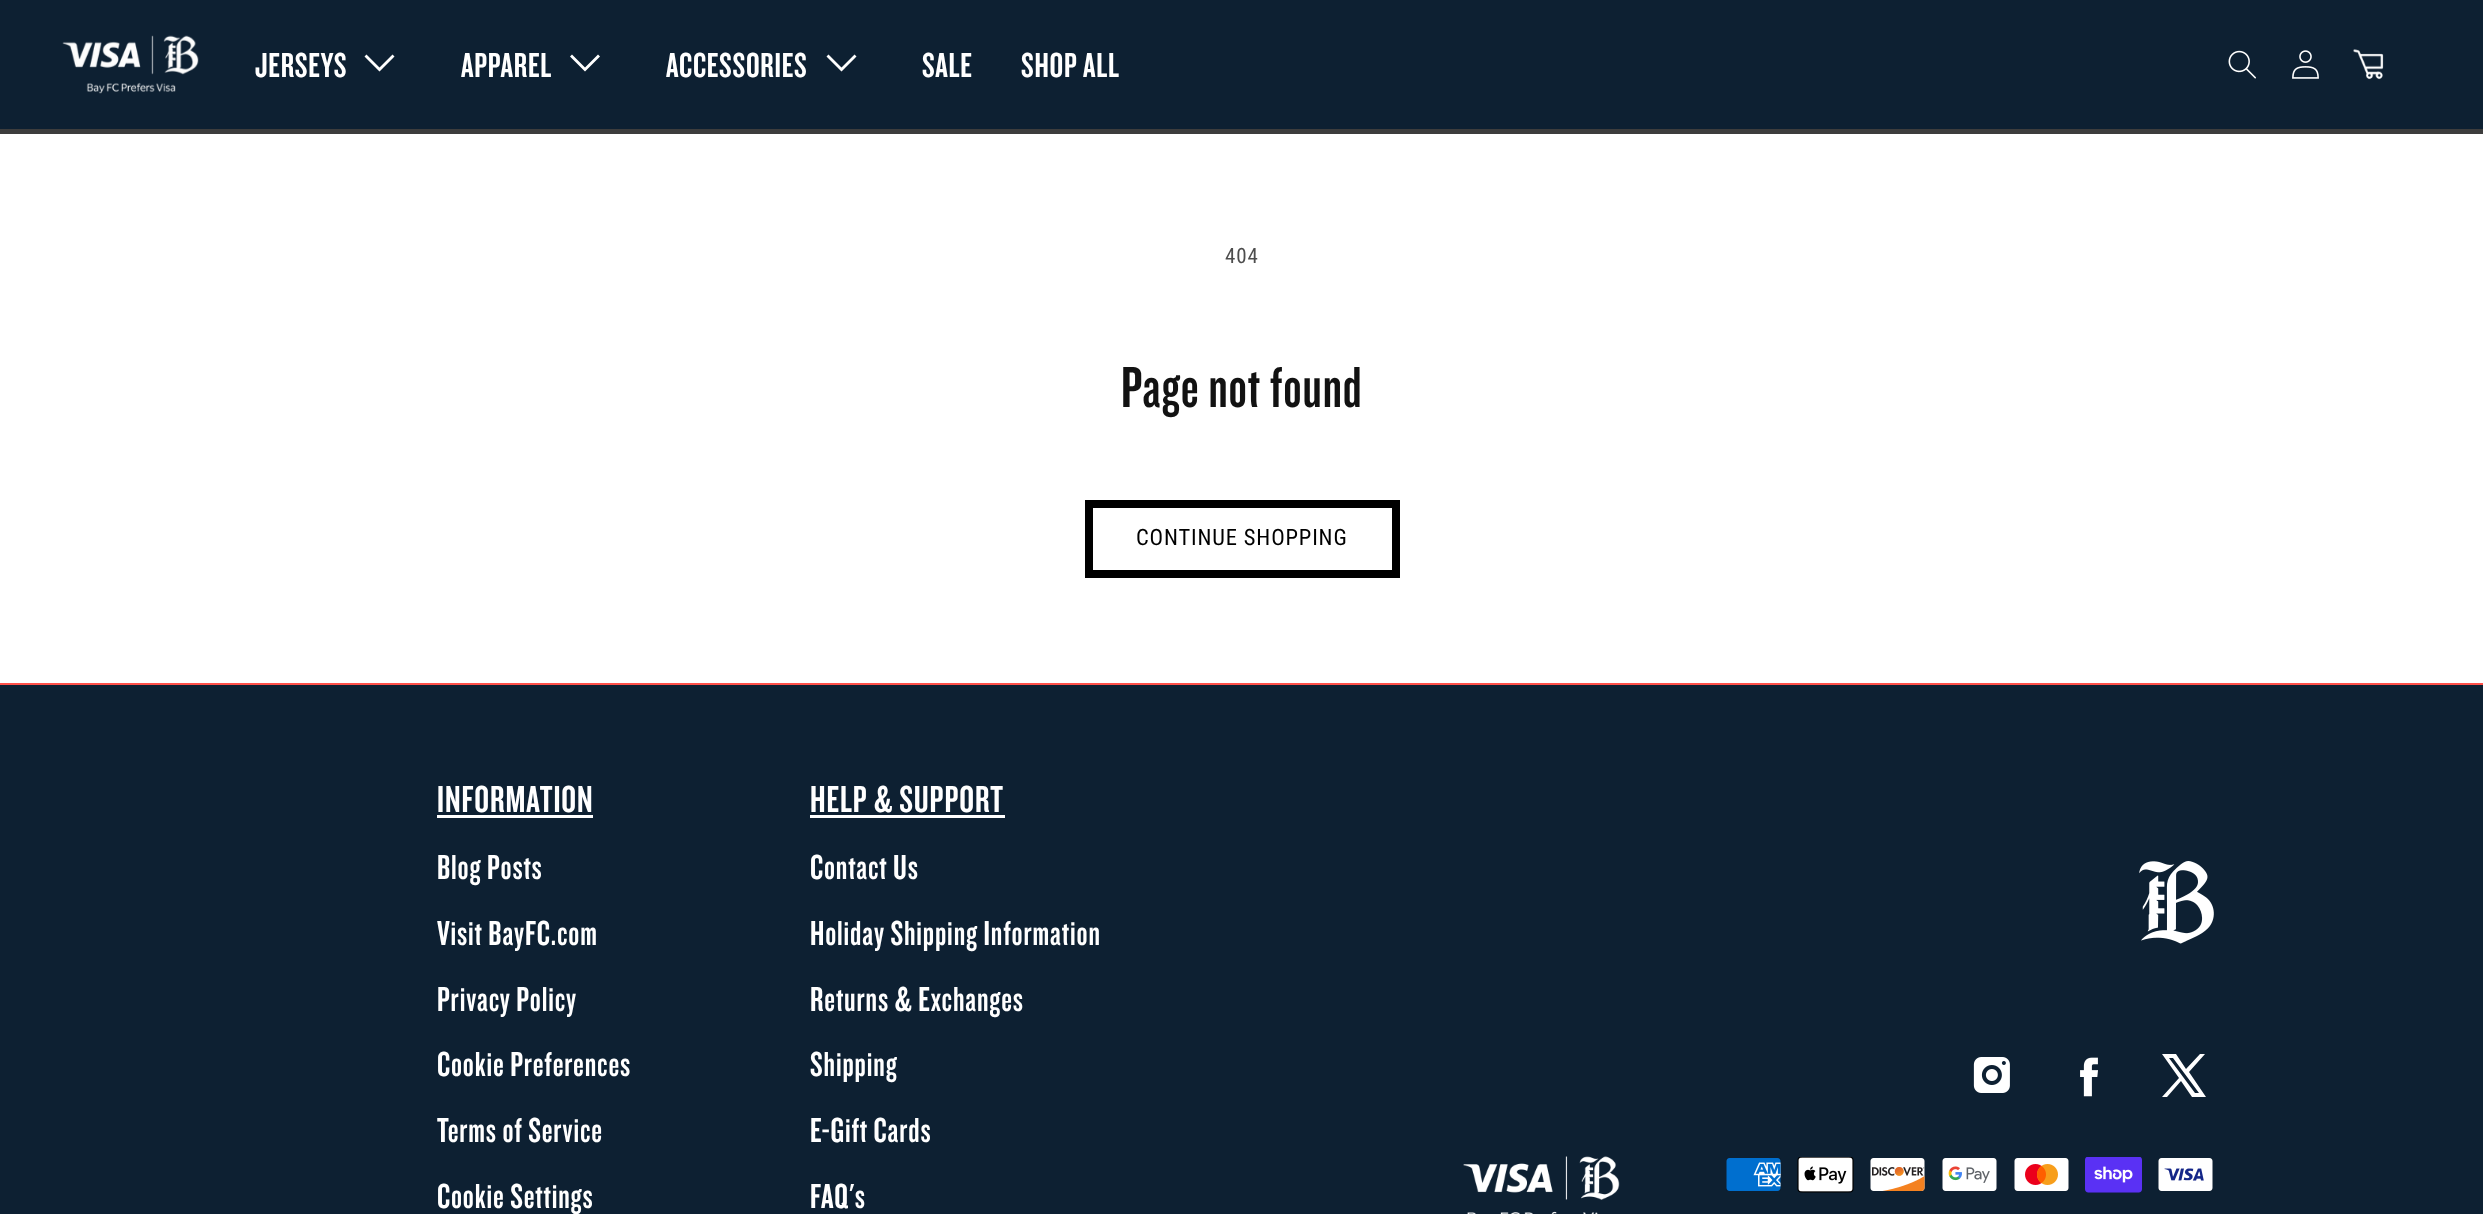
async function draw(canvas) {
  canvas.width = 2483
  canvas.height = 1214
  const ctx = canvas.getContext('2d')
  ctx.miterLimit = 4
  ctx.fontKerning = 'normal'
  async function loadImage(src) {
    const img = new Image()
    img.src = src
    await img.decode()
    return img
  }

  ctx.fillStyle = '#fff'
  ctx.fillRect(0, 0, 2483, 1214)
  ctx.fillStyle = '#0d2032'
  ctx.fillRect(0, 0, 2483, 129)
  ctx.fillStyle = '#3d3d3d'
  ctx.fillRect(0, 129, 2483, 5)
  ctx.drawImage(await loadImage('image0.png'), 62, 35, 137, 59)
  ctx.letterSpacing = '0.75px'
  ctx.font = '36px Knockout'
  ctx.fillStyle = '#fff'
  ctx.fillText('JERSEYS', 255, 77)
  ctx.beginPath()
  ctx.moveTo(379.5, 71.5)
  ctx.lineTo(364.5, 56.5)
  ctx.lineTo(366.5, 54.5)
  ctx.lineTo(379.5, 67.5)
  ctx.lineTo(392.5, 54.5)
  ctx.lineTo(394.5, 56.5)
  ctx.closePath()
  ctx.fill()
  ctx.fillText('APPAREL', 461, 77)
  ctx.beginPath()
  ctx.moveTo(585, 71.5)
  ctx.lineTo(570, 56.5)
  ctx.lineTo(572, 54.5)
  ctx.lineTo(585, 67.5)
  ctx.lineTo(598, 54.5)
  ctx.lineTo(600, 56.5)
  ctx.closePath()
  ctx.fill()
  ctx.fillText('ACCESSORIES', 666, 77)
  ctx.beginPath()
  ctx.moveTo(841.5, 71.5)
  ctx.lineTo(826.5, 56.5)
  ctx.lineTo(828.5, 54.5)
  ctx.lineTo(841.5, 67.5)
  ctx.lineTo(854.5, 54.5)
  ctx.lineTo(856.5, 56.5)
  ctx.closePath()
  ctx.fill()
  ctx.fillText('SALE', 922, 77)
  ctx.fillText('SHOP ALL', 1021, 77)
  ctx.drawImage(await loadImage('image1.png'), 2228, 50, 28, 29)
  ctx.drawImage(await loadImage('image2.png'), 2292, 50, 27, 29)
  ctx.drawImage(await loadImage('image3.png'), 2353, 49, 31, 31)
  ctx.letterSpacing = '0.85px'
  ctx.font = '21px Roboto Condensed'
  ctx.fillStyle = '#4d4d4d'
  ctx.fillText('404', 1225, 263)
  ctx.letterSpacing = '0.9px'
  ctx.font = '60px Knockout'
  ctx.fillStyle = '#121212'
  ctx.fillText('Page not found', 1121, 407)
  ctx.strokeStyle = '#000'
  ctx.lineWidth = 8
  ctx.strokeRect(1089, 504, 307, 70)
  ctx.letterSpacing = '0.85px'
  ctx.font = '22.5px Roboto Condensed'
  ctx.fillStyle = '#000'
  ctx.fillText('CONTINUE SHOPPING', 1136, 545)
  ctx.fillStyle = '#0d2032'
  ctx.fillRect(0, 685, 2483, 529)
  ctx.fillStyle = '#ff5049'
  ctx.fillRect(0, 683, 2483, 2)
  ctx.letterSpacing = '0.9px'
  ctx.font = '39px Knockout'
  ctx.fillStyle = '#fff'
  ctx.fillText('INFORMATION', 437, 812)
  ctx.fillRect(437, 815, 156, 3)
  ctx.letterSpacing = '0.85px'
  ctx.font = '36px Knockout'
  ctx.fillText('Blog Posts', 437, 879)
  ctx.fillText('Visit BayFC.com', 437, 945)
  ctx.fillText('Privacy Policy', 437, 1011)
  ctx.fillText('Cookie Preferences', 437, 1076)
  ctx.fillText('Terms of Service', 437, 1142)
  ctx.fillText('Cookie Settings', 437, 1208)
  ctx.letterSpacing = '0.9px'
  ctx.font = '39px Knockout'
  ctx.fillText('HELP & SUPPORT', 810, 812)
  ctx.fillRect(810, 815, 195, 3)
  ctx.letterSpacing = '0.85px'
  ctx.font = '36px Knockout'
  ctx.fillText('Contact Us', 810, 879)
  ctx.fillText('Holiday Shipping Information', 810, 945)
  ctx.fillText('Returns & Exchanges', 810, 1011)
  ctx.fillText('Shipping', 810, 1076)
  ctx.fillText('E-Gift Cards', 810, 1142)
  ctx.fillText('FAQ\'s', 810, 1208)
  ctx.drawImage(await loadImage('image4.png'), 2139, 861, 75, 83)
  ctx.drawImage(await loadImage('image5.png'), 1973, 1057, 37, 36)
  ctx.drawImage(await loadImage('image6.png'), 2080, 1057, 18, 40)
  ctx.beginPath()
  ctx.moveTo(2176, 1054)
  ctx.lineTo(2186, 1069)
  ctx.lineTo(2200, 1054)
  ctx.lineTo(2205, 1054)
  ctx.lineTo(2189, 1072)
  ctx.lineTo(2206, 1097)
  ctx.lineTo(2192, 1097)
  ctx.lineTo(2181, 1081)
  ctx.lineTo(2167, 1097)
  ctx.lineTo(2162, 1097)
  ctx.lineTo(2179, 1078)
  ctx.lineTo(2162, 1054)
  ctx.closePath()
  ctx.moveTo(2195, 1093)
  ctx.lineTo(2169, 1058)
  ctx.lineTo(2173, 1058)
  ctx.lineTo(2199, 1093)
  ctx.closePath()
  ctx.fill('evenodd')
  ctx.drawImage(await loadImage('image7.png'), 1463, 1156, 157, 58)
  ctx.drawImage(await loadImage('image8.png'), 1726, 1158, 55, 33)
  ctx.drawImage(await loadImage('image9.png'), 1797, 1157, 57, 36)
  ctx.drawImage(await loadImage('image10.png'), 1870, 1158, 55, 33)
  ctx.drawImage(await loadImage('image11.png'), 1942, 1158, 55, 33)
  ctx.drawImage(await loadImage('image12.png'), 2014, 1158, 55, 33)
  ctx.drawImage(await loadImage('image13.png'), 2085, 1157, 57, 36)
  ctx.drawImage(await loadImage('image14.png'), 2158, 1158, 55, 33)
}

draw(document.querySelector('canvas'))
